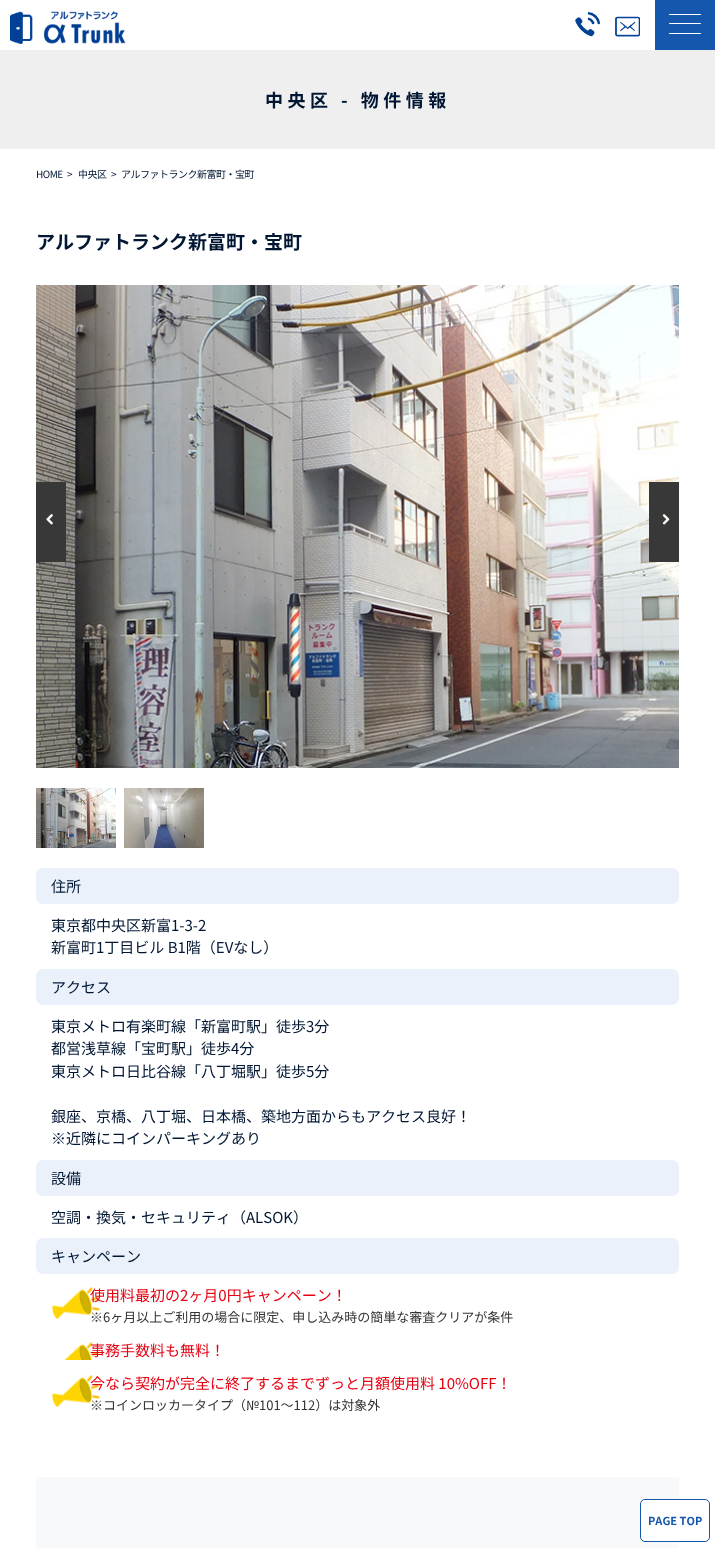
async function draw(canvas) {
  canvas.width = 715
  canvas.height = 1548
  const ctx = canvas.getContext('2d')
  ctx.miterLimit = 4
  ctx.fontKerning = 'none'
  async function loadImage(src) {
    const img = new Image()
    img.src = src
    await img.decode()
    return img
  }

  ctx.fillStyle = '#fff'
  ctx.fillRect(0, 0, 715, 1548)
  ctx.drawImage(await loadImage('image0.png'), 10, 11, 116, 33)
  ctx.drawImage(await loadImage('image1.png'), 575, 12, 25, 25)
  ctx.drawImage(await loadImage('image2.png'), 615, 16, 25, 21)
  ctx.fillStyle = '#1557ac'
  ctx.fillRect(655, 0, 60, 50)
  ctx.fillStyle = '#fff'
  ctx.beginPath()
  ctx.roundRect(669, 14, 32, 1, 0.5)
  ctx.fill()
  ctx.beginPath()
  ctx.roundRect(669, 23, 32, 1, 0.5)
  ctx.fill()
  ctx.beginPath()
  ctx.roundRect(669, 33, 32, 1, 0.5)
  ctx.fill()
  ctx.fillStyle = '#efefef'
  ctx.fillRect(0, 50, 715, 99)
  ctx.letterSpacing = '4.5px'
  ctx.font = 'bold 18px Noto Sans JP'
  ctx.fillStyle = '#001633'
  ctx.fillText('中央区 - 物件情報', 265, 107)
  ctx.letterSpacing = '-0.5px'
  ctx.font = '10px Noto Sans JP'
  ctx.fillText('HOME', 36, 178)
  ctx.fillText('>', 67, 178)
  ctx.fillText('中央区', 78, 178)
  ctx.fillText('>', 111, 178)
  ctx.fillText('アルファトランク新富町・宝町', 121, 178)
  ctx.letterSpacing = '0px'
  ctx.font = 'bold 19px Noto Sans JP'
  ctx.fillText('アルファトランク新富町・宝町', 36, 249)
  ctx.drawImage(await loadImage('image3.png'), 36, 285, 643, 483)
  ctx.fillStyle = '#383838'
  ctx.fillRect(36, 482, 30, 80)
  ctx.drawImage(await loadImage('image4.png'), 46, 514, 7, 11)
  ctx.fillRect(649, 482, 30, 80)
  ctx.drawImage(await loadImage('image5.png'), 662, 514, 8, 11)
  ctx.drawImage(await loadImage('image6.png'), 36, 788, 80, 60)
  ctx.drawImage(await loadImage('image7.png'), 124, 788, 80, 60)
  ctx.fillStyle = '#eaf1fb'
  ctx.beginPath()
  ctx.roundRect(36, 868, 643, 36, 7)
  ctx.fill()
  ctx.font = '15px Noto Sans JP'
  ctx.fillStyle = '#001633'
  ctx.fillText('住所', 51, 892)
  ctx.fillText('東京都中央区新富1-3-2', 51, 931)
  ctx.fillText('新富町1丁目ビル B1階（EVなし）', 51, 953)
  ctx.fillStyle = '#eaf1fb'
  ctx.beginPath()
  ctx.roundRect(36, 969, 643, 36, 7)
  ctx.fill()
  ctx.fillStyle = '#001633'
  ctx.fillText('アクセス', 51, 993)
  ctx.fillText('東京メトロ有楽町線「新富町駅」徒歩3分', 51, 1032)
  ctx.fillText('都営浅草線「宝町駅」徒歩4分', 51, 1054)
  ctx.fillText('東京メトロ日比谷線「八丁堀駅」徒歩5分', 51, 1077)
  ctx.fillText('銀座、京橋、八丁堀、日本橋、築地方面からもアクセス良好！', 51, 1122)
  ctx.fillText('※近隣にコインパーキングあり', 51, 1144)
  ctx.fillStyle = '#eaf1fb'
  ctx.beginPath()
  ctx.roundRect(36, 1160, 643, 36, 7)
  ctx.fill()
  ctx.fillStyle = '#001633'
  ctx.fillText('設備', 51, 1184)
  ctx.fillText('空調・換気・セキュリティ（ALSOK）', 51, 1223)
  ctx.fillStyle = '#eaf1fb'
  ctx.beginPath()
  ctx.roundRect(36, 1238, 643, 36, 7)
  ctx.fill()
  ctx.fillStyle = '#001633'
  ctx.fillText('キャンペーン', 51, 1262)
  ctx.drawImage(await loadImage('image8.png'), 51, 1287, 49, 33)
  ctx.fillStyle = '#e50112'
  ctx.fillText('使用料最初の2ヶ月0円キャンペーン！', 90, 1301)
  ctx.font = '13px Noto Sans JP'
  ctx.fillStyle = '#333'
  ctx.fillText('※6ヶ月以上ご利用の場合に限定、申し込み時の簡単な審査クリアが条件', 90, 1322)
  ctx.drawImage(await loadImage('image9.png'), 64, 1342, 35, 18)
  ctx.font = '15px Noto Sans JP'
  ctx.fillStyle = '#e50112'
  ctx.fillText('事務手数料も無料！', 90, 1356)
  ctx.drawImage(await loadImage('image10.png'), 51, 1375, 49, 33)
  ctx.fillText('今なら契約が完全に終了するまでずっと月額使用料 10%OFF！', 90, 1389)
  ctx.font = '13px Noto Sans JP'
  ctx.fillStyle = '#333'
  ctx.fillText('※コインロッカータイプ（№101～112）は対象外', 90, 1410)
  ctx.fillStyle = '#f8f9fa'
  ctx.fillRect(36, 1477, 643, 71)
  ctx.fillStyle = '#fff'
  ctx.beginPath()
  ctx.roundRect(640.5, 1499.5, 69, 42, 4.5)
  ctx.fill()
  ctx.strokeStyle = '#1557ac'
  ctx.stroke()
  ctx.font = 'bold 11px Noto Sans JP'
  ctx.fillStyle = '#1557ac'
  ctx.fillText('PAGE TOP', 648, 1525)
}

draw(document.querySelector('canvas'))
